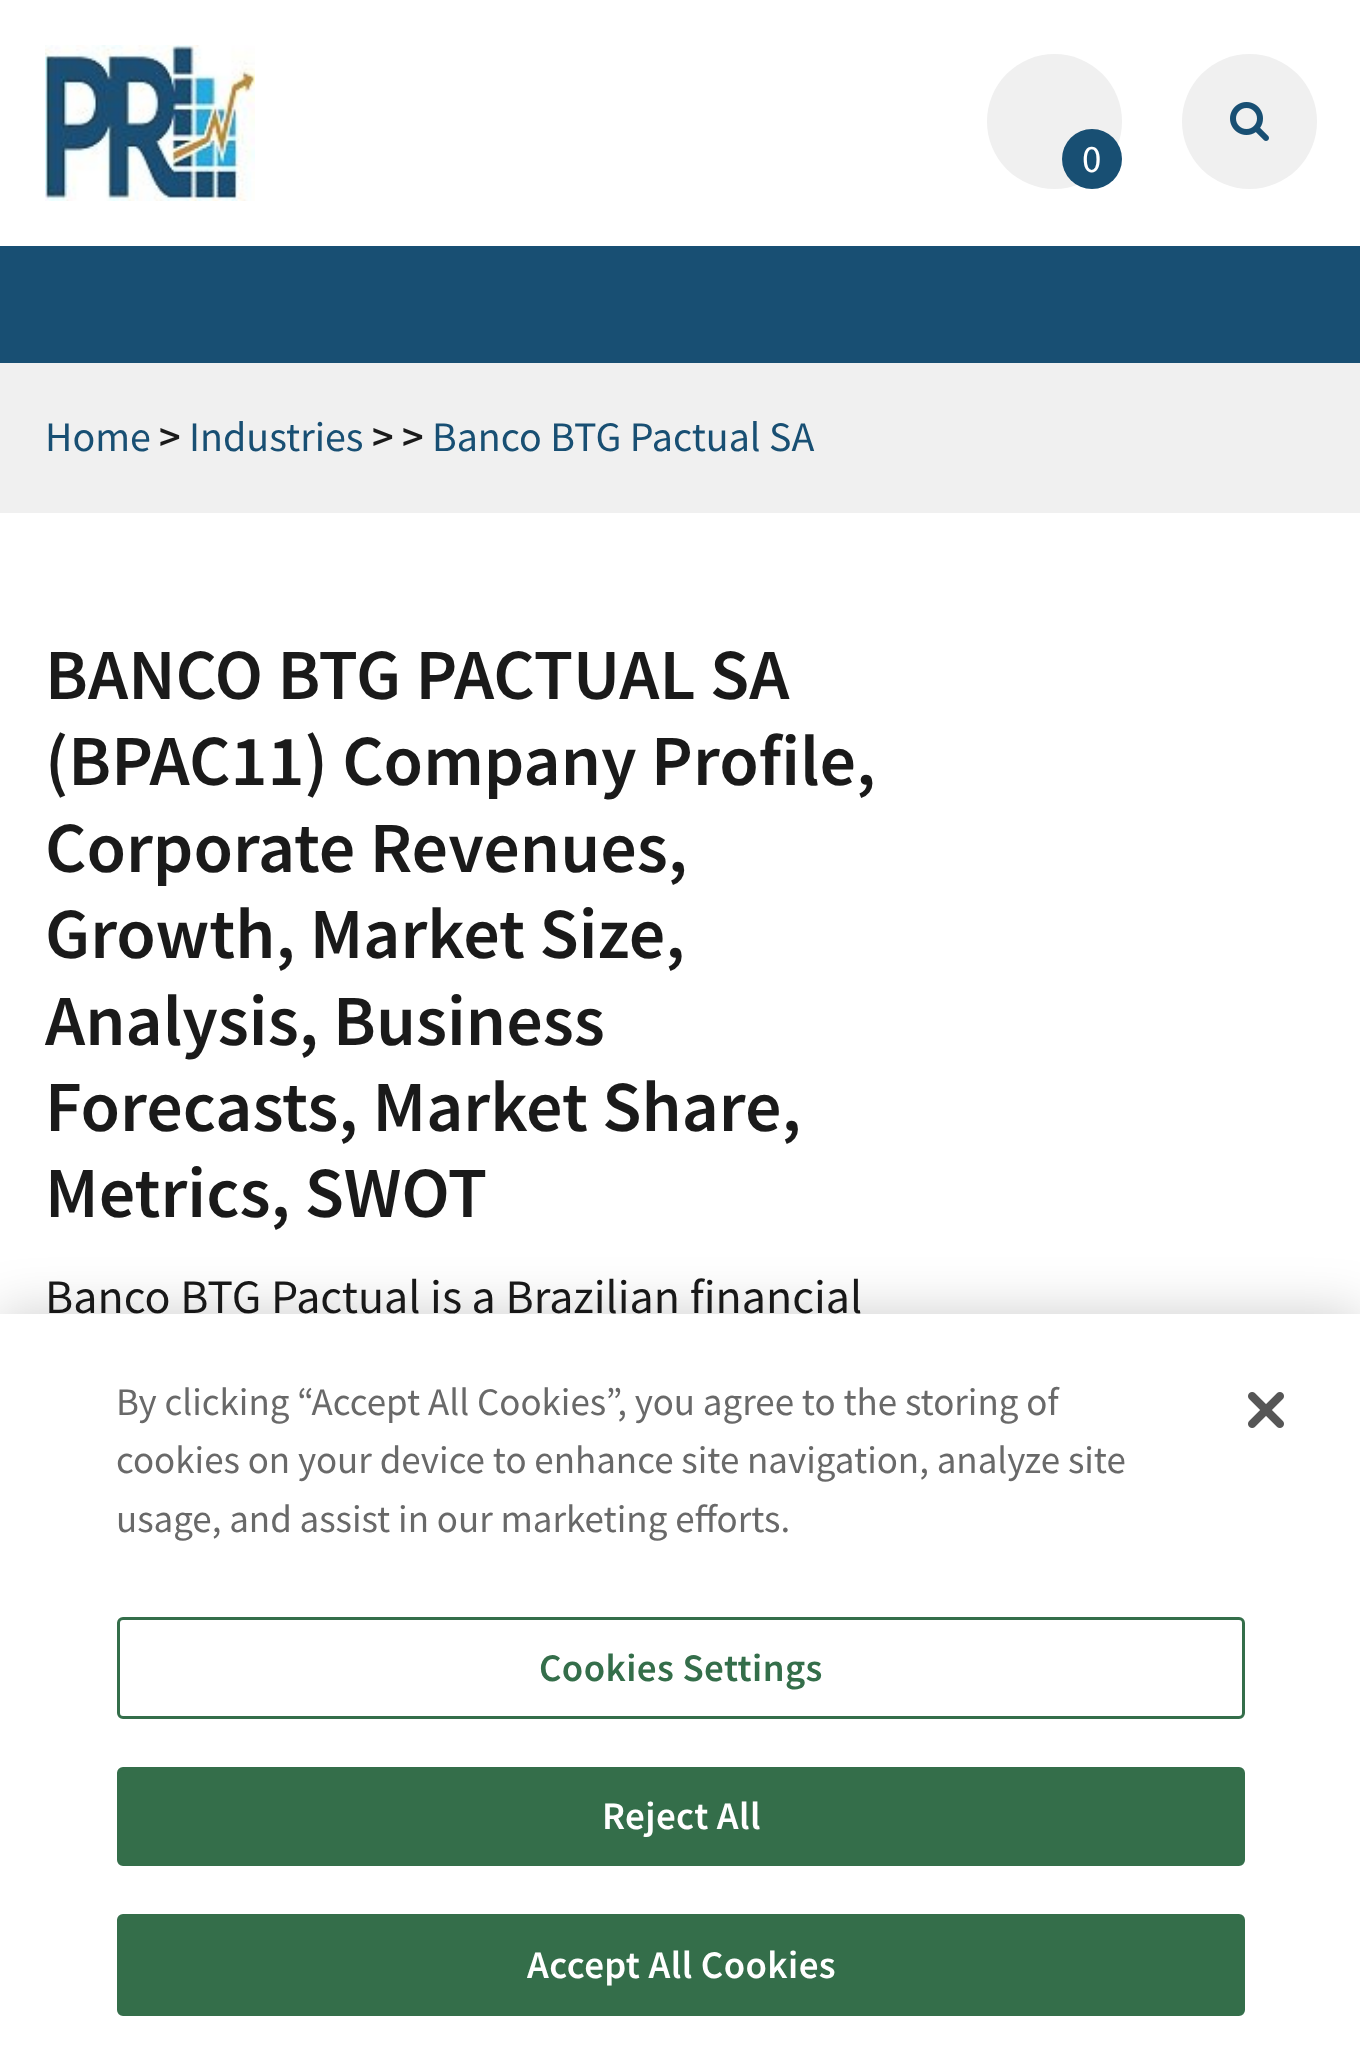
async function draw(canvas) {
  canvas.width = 1360
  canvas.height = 2062
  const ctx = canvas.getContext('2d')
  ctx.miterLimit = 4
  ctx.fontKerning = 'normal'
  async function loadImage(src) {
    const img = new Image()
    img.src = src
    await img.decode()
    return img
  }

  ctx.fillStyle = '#fff'
  ctx.fillRect(0, 0, 1360, 2062)
  ctx.drawImage(await loadImage('image0.png'), 45, 45, 210, 156)
  ctx.fillStyle = '#f0f0f0'
  ctx.beginPath()
  ctx.arc(1054.5, 121.5, 67.5, 0, 2 * Math.PI)
  ctx.fill()
  ctx.fillStyle = '#184f73'
  ctx.beginPath()
  ctx.arc(1092, 159, 30, 0, 2 * Math.PI)
  ctx.fill()
  ctx.font = '39px Source Sans Pro'
  ctx.fillStyle = '#fff'
  ctx.fillText('0', 1082, 172)
  ctx.fillStyle = '#f0f0f0'
  ctx.beginPath()
  ctx.arc(1249.5, 121.5, 67.5, 0, 2 * Math.PI)
  ctx.fill()
  ctx.drawImage(await loadImage('image1.png'), 1230, 102, 39, 39)
  ctx.fillStyle = '#184f73'
  ctx.fillRect(0, 246, 1360, 117)
  ctx.fillStyle = '#f0f0f0'
  ctx.fillRect(0, 363, 1360, 150)
  ctx.font = '42px Source Sans Pro'
  ctx.fillStyle = '#184f73'
  ctx.fillText('Home', 45, 451)
  ctx.font = '600 42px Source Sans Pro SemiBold'
  ctx.fillStyle = '#1a1a1a'
  ctx.fillText('>', 159, 451)
  ctx.font = '42px Source Sans Pro'
  ctx.fillStyle = '#184f73'
  ctx.fillText('Industries', 189, 451)
  ctx.font = '600 42px Source Sans Pro SemiBold'
  ctx.fillStyle = '#1a1a1a'
  ctx.fillText('> >', 372, 451)
  ctx.font = '42px Source Sans Pro'
  ctx.fillStyle = '#184f73'
  ctx.fillText('Banco BTG Pactual SA', 432, 451)
  ctx.font = '600 72px Source Sans Pro SemiBold'
  ctx.fillStyle = '#1a1a1a'
  ctx.fillText('BANCO BTG PACTUAL SA', 45, 699)
  ctx.fillText('(BPAC11) Company Profile,', 45, 785)
  ctx.fillText('Corporate Revenues,', 45, 872)
  ctx.fillText('Growth, Market Size,', 45, 958)
  ctx.fillText('Analysis, Business', 45, 1045)
  ctx.fillText('Forecasts, Market Share,', 45, 1131)
  ctx.fillText('Metrics, SWOT', 45, 1217)
  ctx.font = '48px Source Sans Pro'
  ctx.fillText('Banco BTG Pactual is a Brazilian financial', 45, 1313)
  ctx.fillStyle = '#00000033'
  ctx.filter = 'blur(27px)'
  ctx.beginPath()
  ctx.rect(0, 1314, 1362, 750)
  ctx.fill()
  ctx.filter = 'none'
  ctx.fillStyle = '#fff'
  ctx.fillRect(0, 1314, 1360, 748)
  ctx.font = '39px Source Sans Pro'
  ctx.fillStyle = '#696969'
  ctx.fillText('By clicking “Accept All Cookies”, you agree to the storing of', 116, 1415)
  ctx.fillText('cookies on your device to enhance site navigation, analyze site', 116, 1473)
  ctx.fillText('usage, and assist in our marketing efforts.', 116, 1532)
  ctx.beginPath()
  ctx.roundRect(118.5, 1618.5, 1125, 99, 4.5)
  ctx.strokeStyle = '#346e4a'
  ctx.lineWidth = 3
  ctx.stroke()
  ctx.letterSpacing = '0.4px'
  ctx.font = '600 39px Source Sans Pro SemiBold'
  ctx.fillStyle = '#346e4a'
  ctx.fillText('Cookies Settings', 539, 1681)
  ctx.beginPath()
  ctx.roundRect(118.5, 1768.5, 1125, 96, 4.5)
  ctx.fill()
  ctx.stroke()
  ctx.fillStyle = '#fff'
  ctx.fillText('Reject All', 602, 1829)
  ctx.fillStyle = '#346e4a'
  ctx.beginPath()
  ctx.roundRect(118.5, 1915.5, 1125, 99, 4.5)
  ctx.fill()
  ctx.stroke()
  ctx.fillStyle = '#fff'
  ctx.fillText('Accept All Cookies', 527, 1978)
  ctx.drawImage(await loadImage('image2.png'), 1248, 1392, 36, 36)
}

draw(document.querySelector('canvas'))
